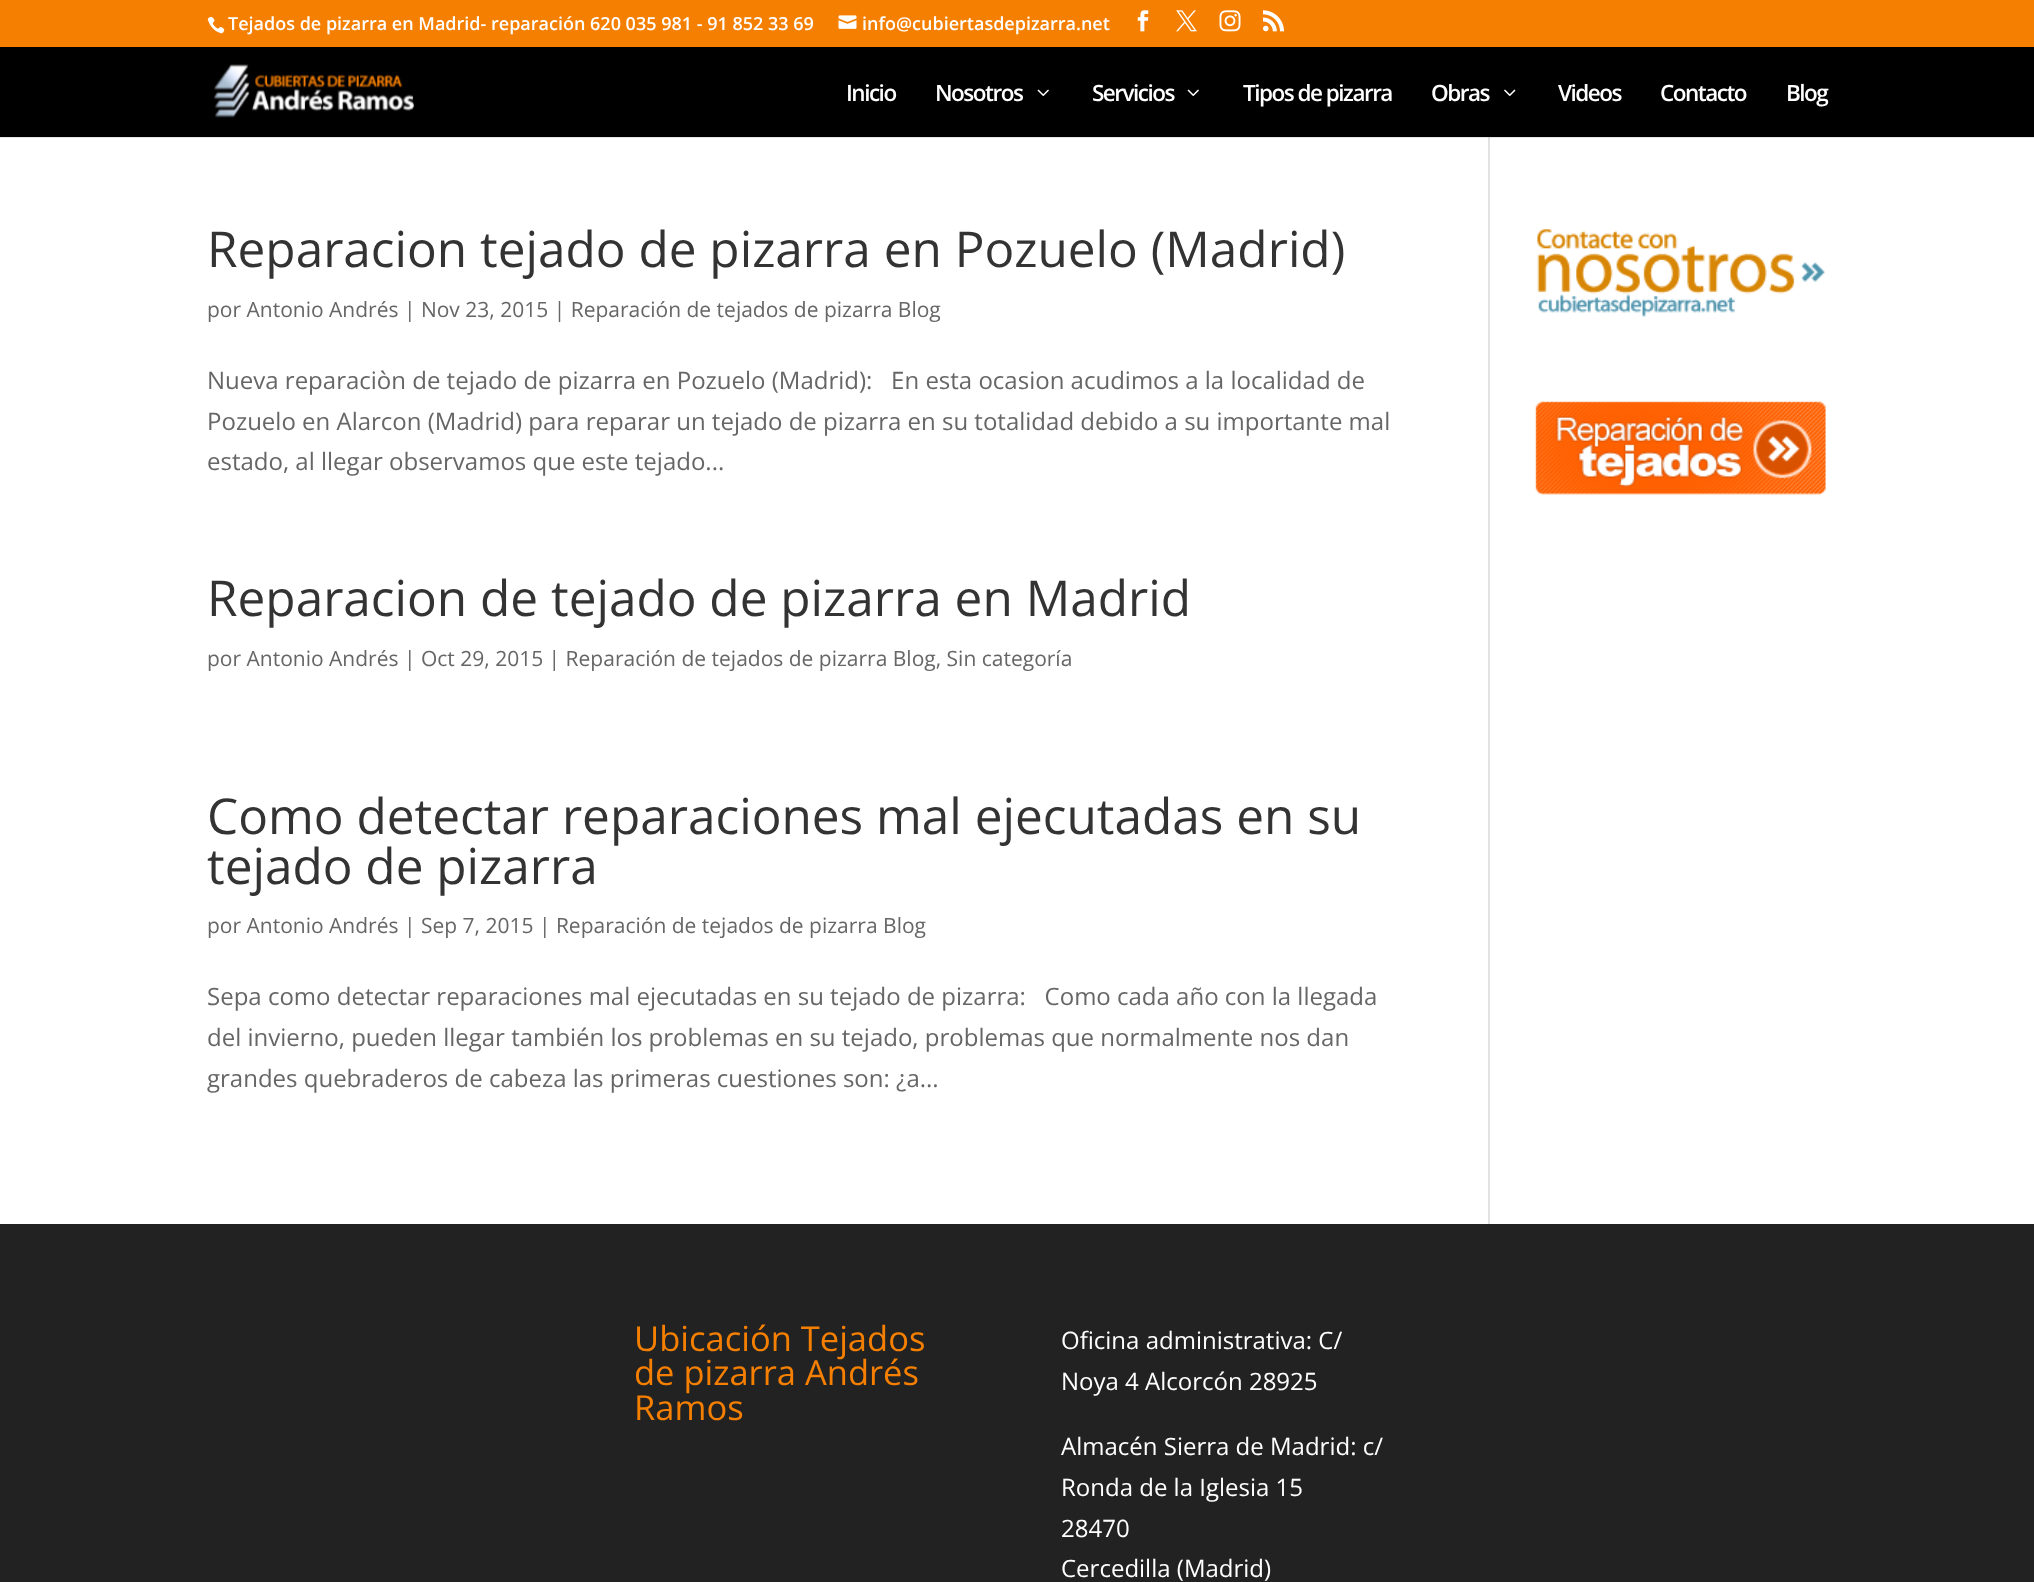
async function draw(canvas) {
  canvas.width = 2034
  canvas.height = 1582
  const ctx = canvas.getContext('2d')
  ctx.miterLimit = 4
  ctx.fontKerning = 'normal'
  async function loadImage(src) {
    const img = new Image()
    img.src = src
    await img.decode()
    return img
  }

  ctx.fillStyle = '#fff'
  ctx.fillRect(0, 0, 2034, 1582)
  ctx.fillStyle = '#f57f00'
  ctx.fillRect(0, 0, 2034, 47)
  ctx.drawImage(await loadImage('image0.png'), 207, 16, 18, 18)
  ctx.font = '600 18px Open Sans'
  ctx.fillStyle = '#fff'
  ctx.fillText('Tejados de pizarra en Madrid- reparación 620 035 981 - 91 852 33 69', 228, 30)
  ctx.drawImage(await loadImage('image1.png'), 838, 15, 19, 14)
  ctx.fillText('info@cubiertasdepizarra.net', 862, 30)
  ctx.drawImage(await loadImage('image2.png'), 1137, 10, 12, 22)
  ctx.drawImage(await loadImage('image3.png'), 1176, 10, 21, 22)
  ctx.drawImage(await loadImage('image4.png'), 1219, 10, 22, 22)
  ctx.drawImage(await loadImage('image5.png'), 1263, 10, 21, 22)
  ctx.fillStyle = '#000'
  ctx.fillRect(0, 47, 2034, 90)
  ctx.drawImage(await loadImage('image6.png'), 214, 64, 200, 54)
  ctx.letterSpacing = '-1.5px'
  ctx.font = '600 22.5px Open Sans'
  ctx.fillStyle = '#fff'
  ctx.fillText('Inicio', 846, 101)
  ctx.fillText('Nosotros', 935, 101)
  ctx.drawImage(await loadImage('image7.png'), 1037, 89, 12, 7)
  ctx.fillText('Servicios', 1092, 101)
  ctx.drawImage(await loadImage('image7.png'), 1187, 89, 12, 7)
  ctx.fillText('Tipos de pizarra', 1243, 101)
  ctx.fillText('Obras', 1431, 101)
  ctx.drawImage(await loadImage('image8.png'), 1504, 89, 12, 7)
  ctx.fillText('Videos', 1558, 101)
  ctx.fillText('Contacto', 1660, 101)
  ctx.fillText('Blog', 1786, 101)
  ctx.fillStyle = '#e6e6e6'
  ctx.fillRect(0, 137, 2034, 1)
  ctx.letterSpacing = '0px'
  ctx.font = '49.5px Open Sans'
  ctx.fillStyle = '#333'
  ctx.fillText('Reparacion tejado de pizarra en Pozuelo (Madrid)', 207, 267)
  ctx.font = '21px Open Sans'
  ctx.fillStyle = '#666'
  ctx.fillText('por Antonio Andrés | Nov 23, 2015 | Reparación de tejados de pizarra Blog', 207, 317)
  ctx.font = '24px Open Sans'
  ctx.fillText('Nueva reparaciòn de tejado de pizarra en Pozuelo (Madrid):   En esta ocasion acudimos a la localidad de', 207, 389)
  ctx.fillText('Pozuelo en Alarcon (Madrid) para reparar un tejado de pizarra en su totalidad debido a su importante mal', 207, 430)
  ctx.fillText('estado, al llegar observamos que este tejado...', 207, 470)
  ctx.font = '49.5px Open Sans'
  ctx.fillStyle = '#333'
  ctx.fillText('Reparacion de tejado de pizarra en Madrid', 207, 616)
  ctx.font = '21px Open Sans'
  ctx.fillStyle = '#666'
  ctx.fillText('por Antonio Andrés | Oct 29, 2015 | Reparación de tejados de pizarra Blog, Sin categoría', 207, 666)
  ctx.font = '49.5px Open Sans'
  ctx.fillStyle = '#333'
  ctx.fillText('Como detectar reparaciones mal ejecutadas en su', 207, 834)
  ctx.fillText('tejado de pizarra', 207, 884)
  ctx.font = '21px Open Sans'
  ctx.fillStyle = '#666'
  ctx.fillText('por Antonio Andrés | Sep 7, 2015 | Reparación de tejados de pizarra Blog', 207, 933)
  ctx.font = '24px Open Sans'
  ctx.fillText('Sepa como detectar reparaciones mal ejecutadas en su tejado de pizarra:   Como cada año con la llegada', 207, 1005)
  ctx.fillText('del invierno, pueden llegar también los problemas en su tejado, problemas que normalmente nos dan', 207, 1046)
  ctx.fillText('grandes quebraderos de cabeza las primeras cuestiones son: ¿a...', 207, 1087)
  ctx.drawImage(await loadImage('image9.png'), 1537, 229, 289, 88)
  ctx.drawImage(await loadImage('image10.png'), 1535, 401, 291, 94)
  ctx.fillStyle = '#e2e2e2'
  ctx.fillRect(1488, 137, 2, 1087)
  ctx.fillStyle = '#cbcbcb'
  ctx.fillRect(1488, 137, 2, 1)
  ctx.fillStyle = '#222'
  ctx.fillRect(0, 1224, 2034, 358)
  ctx.font = '34.5px Open Sans'
  ctx.fillStyle = '#f57f00'
  ctx.fillText('Ubicación Tejados', 634, 1351)
  ctx.fillText('de pizarra Andrés', 634, 1385)
  ctx.fillText('Ramos', 634, 1420)
  ctx.font = '24px Open Sans'
  ctx.fillStyle = '#fff'
  ctx.fillText('Oficina administrativa: C/', 1061, 1349)
  ctx.fillText('Noya 4 Alcorcón 28925', 1061, 1390)
  ctx.fillText('Almacén Sierra de Madrid: c/', 1061, 1455)
  ctx.fillText('Ronda de la Iglesia 15', 1061, 1496)
  ctx.fillText('28470', 1061, 1537)
  ctx.fillText('Cercedilla (Madrid)', 1061, 1577)
}

draw(document.querySelector('canvas'))
